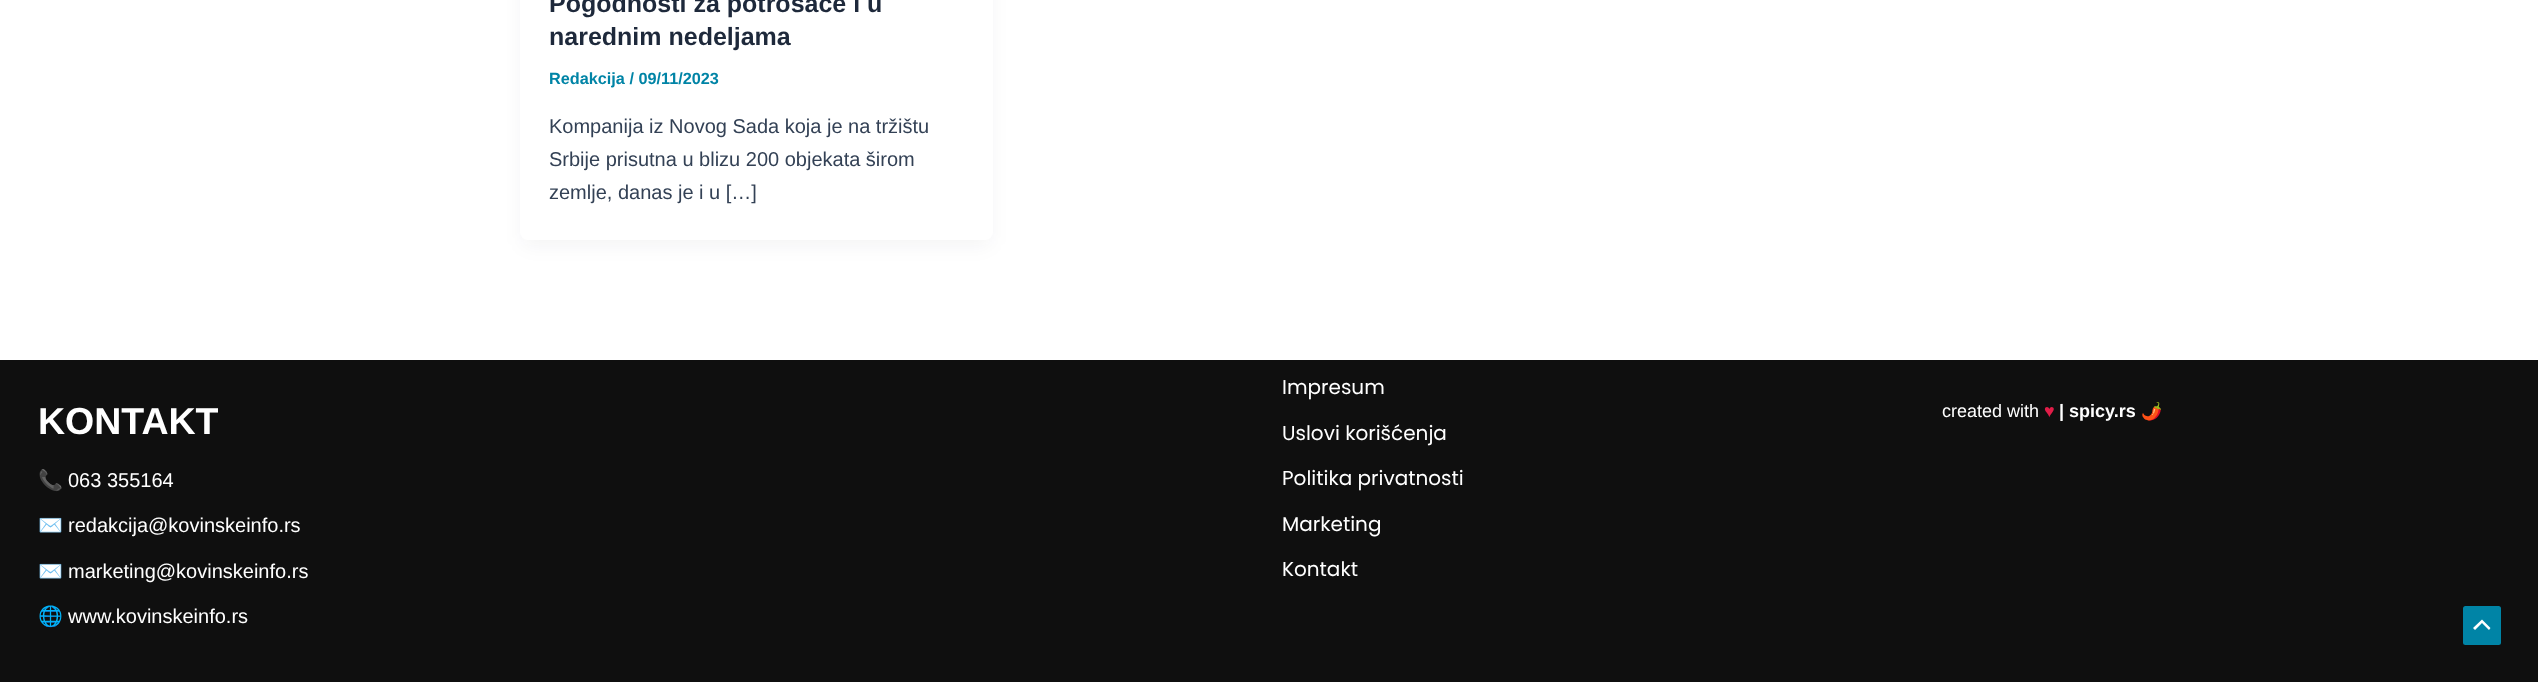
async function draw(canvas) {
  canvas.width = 2538
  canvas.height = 682
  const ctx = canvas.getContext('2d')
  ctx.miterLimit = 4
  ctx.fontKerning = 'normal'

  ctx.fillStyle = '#fff'
  ctx.fillRect(0, 0, 2538, 682)
  ctx.fillStyle = '#1018280d'
  ctx.filter = 'blur(9.5px)'
  ctx.beginPath()
  ctx.roundRect(523, -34, 467, 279, 5)
  ctx.fill()
  ctx.filter = 'none'
  ctx.fillStyle = '#fff'
  ctx.beginPath()
  ctx.roundRect(520, -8, 473, 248, 8)
  ctx.fill()
  ctx.font = 'bold 25px Liberation Sans'
  ctx.fillStyle = '#1e293b'
  ctx.fillText('Pogodnosti za potrošače i u', 549, 12)
  ctx.fillText('narednim nedeljama', 549, 45)
  ctx.font = 'bold 16.25px Liberation Sans'
  ctx.fillStyle = '#0084a6'
  ctx.fillText('Redakcija / 09/11/2023', 549, 84)
  ctx.font = '20px Liberation Sans'
  ctx.fillStyle = '#334155'
  ctx.fillText('Kompanija iz Novog Sada koja je na tržištu', 549, 133)
  ctx.fillText('Srbije prisutna u blizu 200 objekata širom', 549, 166)
  ctx.fillText('zemlje, danas je i u […]', 549, 199)
  ctx.fillStyle = '#0f0f0f'
  ctx.fillRect(0, 360, 2538, 322)
  ctx.font = 'bold 37.5px Liberation Sans'
  ctx.fillStyle = '#fff'
  ctx.fillText('KONTAKT', 38, 434)
  ctx.font = '20px Noto Color Emoji'
  ctx.fillText('📞', 38, 487)
  ctx.font = '20px Liberation Sans'
  ctx.fillText('063 355164', 68, 487)
  ctx.font = '20px Noto Color Emoji'
  ctx.fillText('✉️', 38, 532)
  ctx.font = '20px Liberation Sans'
  ctx.fillText('redakcija@kovinskeinfo.rs', 68, 532)
  ctx.font = '20px Noto Color Emoji'
  ctx.fillText('✉️', 38, 578)
  ctx.font = '20px Liberation Sans'
  ctx.fillText('marketing@kovinskeinfo.rs', 68, 578)
  ctx.font = '20px Noto Color Emoji'
  ctx.fillText('🌐', 38, 623)
  ctx.font = '20px Liberation Sans'
  ctx.fillText('www.kovinskeinfo.rs', 68, 623)
  ctx.font = '20px Poppins'
  ctx.fillText('Impresum', 1282, 394)
  ctx.fillText('Uslovi korišćenja', 1282, 440)
  ctx.fillText('Politika privatnosti', 1282, 485)
  ctx.fillText('Marketing', 1282, 531)
  ctx.fillText('Kontakt', 1282, 576)
  ctx.font = '18px Liberation Sans'
  ctx.fillText('created with', 1942, 417)
  ctx.fillStyle = '#e11d48'
  ctx.fillText('♥', 2044, 417)
  ctx.font = 'bold 18px Liberation Sans'
  ctx.fillStyle = '#fff'
  ctx.fillText('| spicy.rs', 2059, 417)
  ctx.font = '17px Noto Color Emoji'
  ctx.fillText('🌶️', 2141, 417)
  ctx.fillStyle = '#0084a6'
  ctx.beginPath()
  ctx.roundRect(2463, 606, 38, 39, 2.5)
  ctx.fill()
  ctx.fillStyle = '#fff'
  ctx.beginPath()
  ctx.moveTo(2490.5, 628)
  ctx.lineTo(2482, 619.5)
  ctx.lineTo(2473, 628)
  ctx.lineTo(2475, 630)
  ctx.lineTo(2482, 623)
  ctx.lineTo(2489, 630)
  ctx.closePath()
  ctx.fill()
}

draw(document.querySelector('canvas'))
